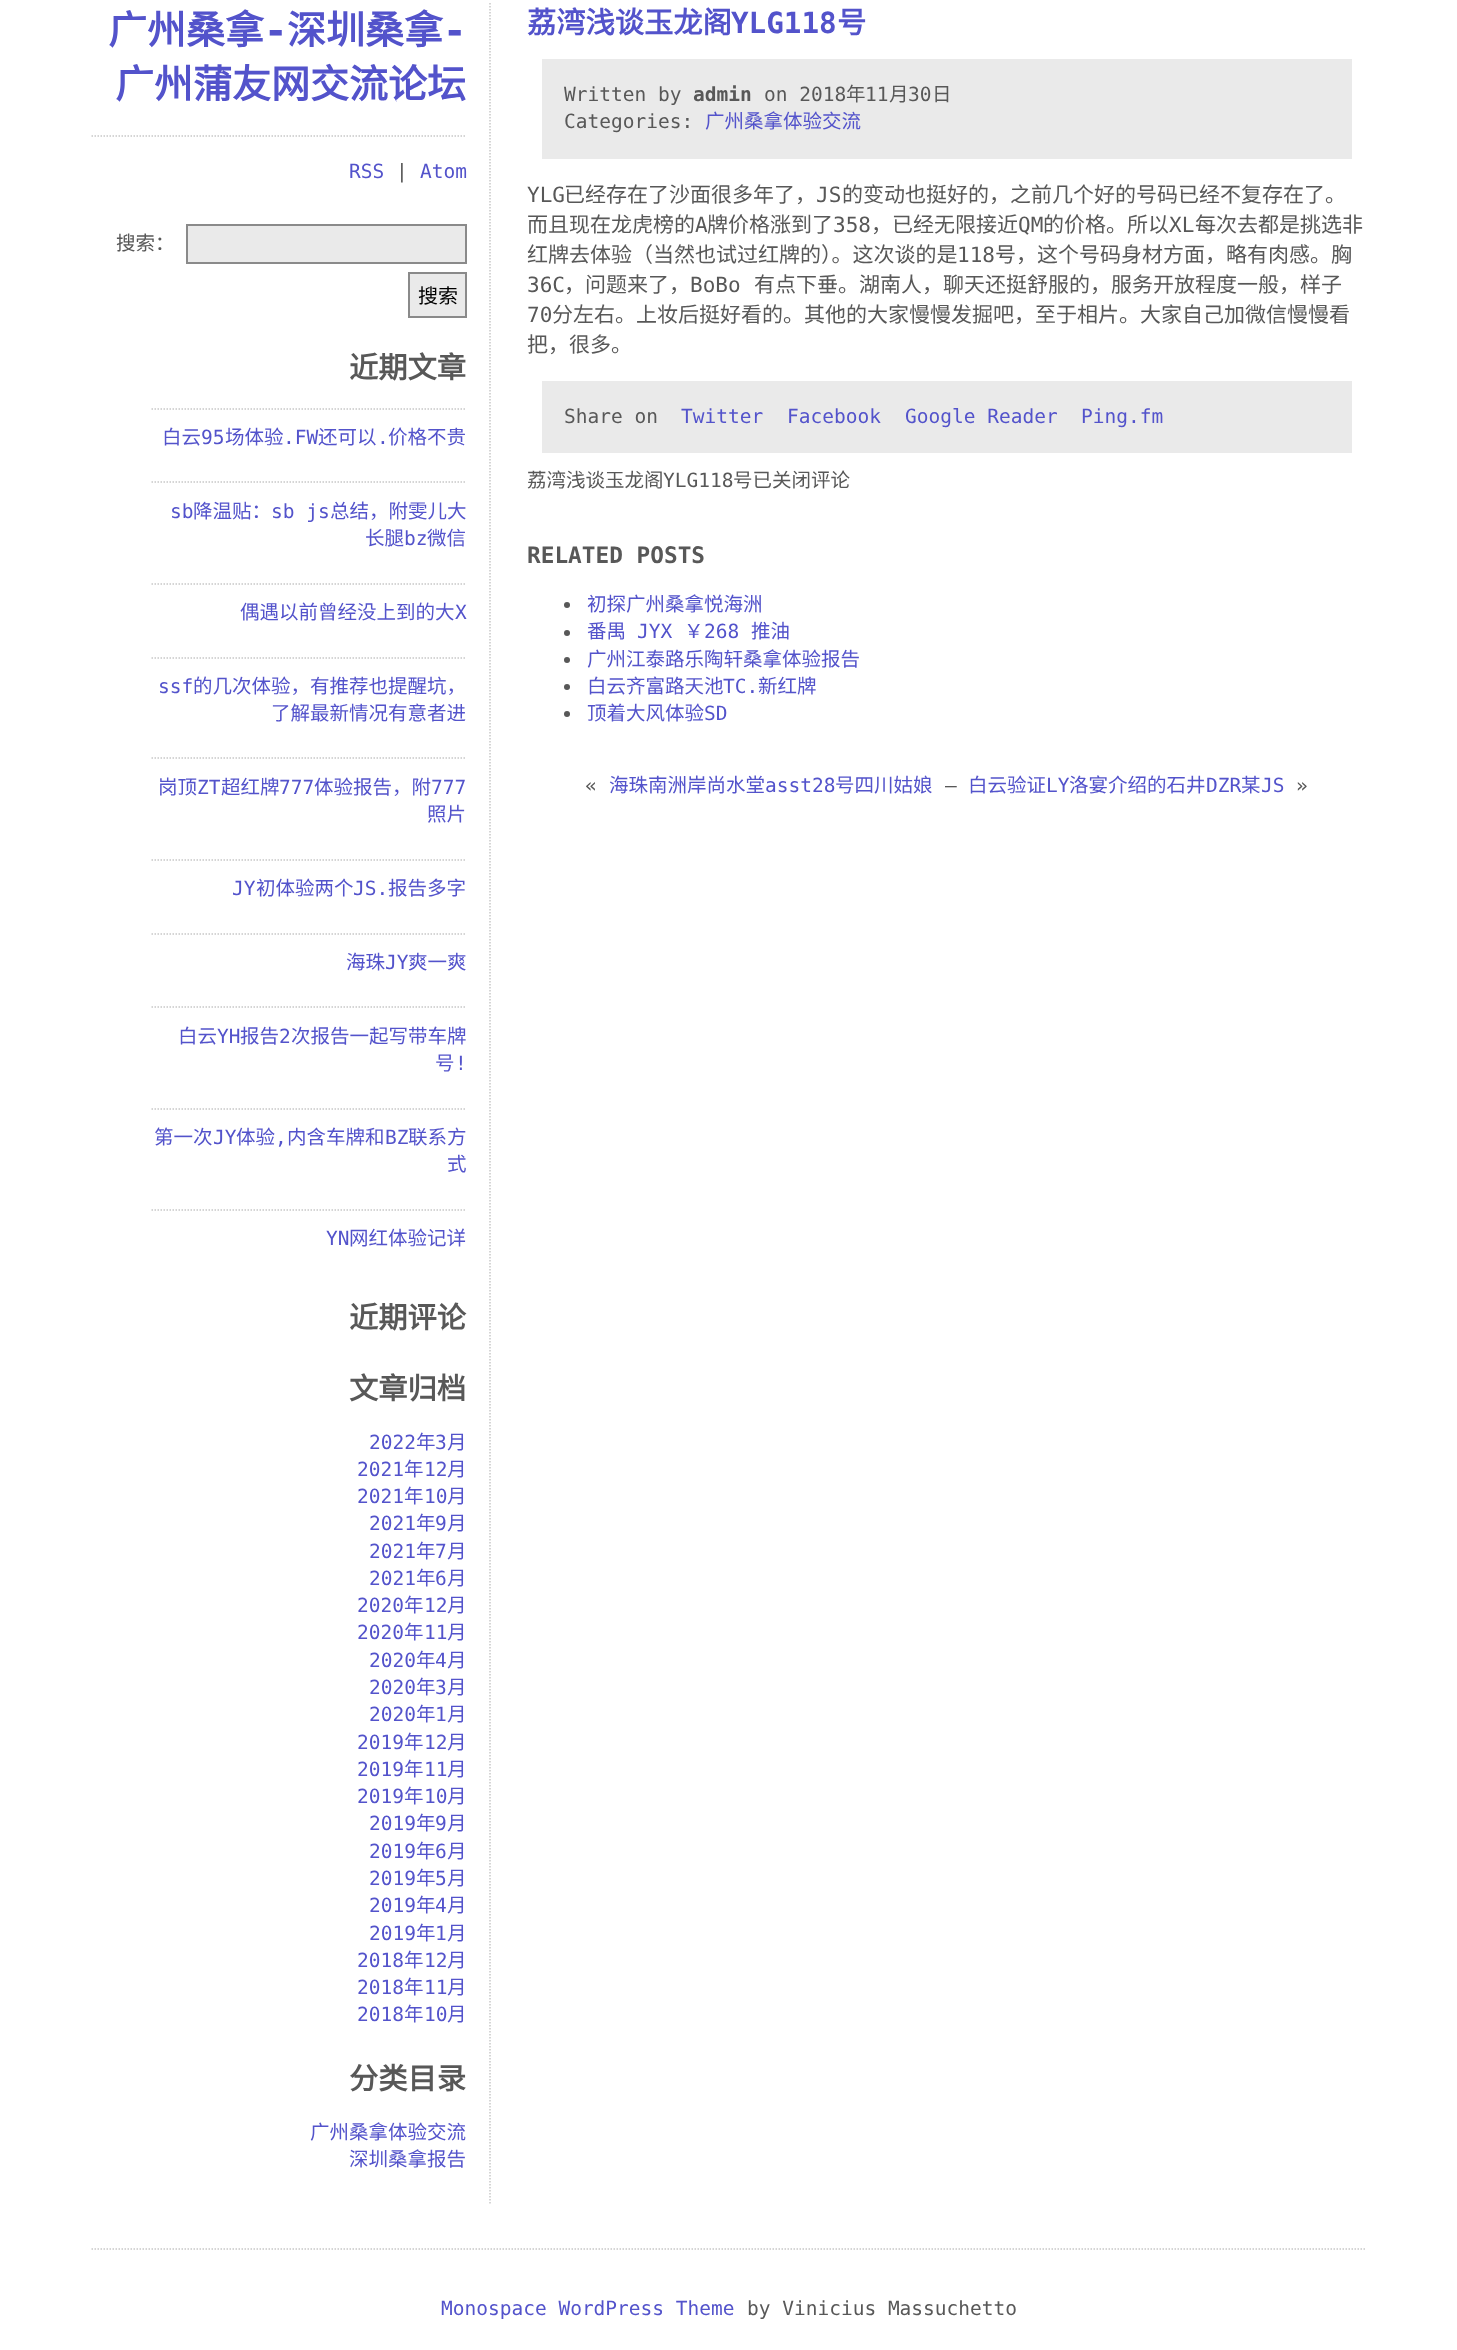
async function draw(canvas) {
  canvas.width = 1457
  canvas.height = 2350
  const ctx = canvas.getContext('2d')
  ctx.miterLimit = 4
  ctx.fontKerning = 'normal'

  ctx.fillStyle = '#fff'
  ctx.fillRect(0, 0, 1457, 2350)
  ctx.beginPath()
  ctx.moveTo(490, 3)
  ctx.lineTo(490, 2203.5)
  ctx.strokeStyle = '#c8c8c8'
  ctx.lineWidth = 1.5
  ctx.setLineDash([1.5, 1.5])
  ctx.stroke()
  ctx.beginPath()
  ctx.moveTo(91.5, 136)
  ctx.lineTo(466.5, 136)
  ctx.stroke()
  ctx.font = 'bold 39px Noto Sans CJK SC'
  ctx.fillStyle = '#5353cb'
  ctx.fillText('广州桑拿', 108, 44)
  ctx.font = 'bold 39px DejaVu Sans Mono'
  ctx.fillText('-', 264, 44)
  ctx.font = 'bold 39px Noto Sans CJK SC'
  ctx.fillText('深圳桑拿', 287, 44)
  ctx.font = 'bold 39px DejaVu Sans Mono'
  ctx.fillText('-', 443, 44)
  ctx.font = 'bold 39px Noto Sans CJK SC'
  ctx.fillText('广州蒲友网交流论坛', 115, 98)
  ctx.font = '19.5px DejaVu Sans Mono'
  ctx.fillText('RSS', 349, 178)
  ctx.fillStyle = '#585858'
  ctx.fillText('|', 396, 178)
  ctx.fillStyle = '#5353cb'
  ctx.fillText('Atom', 420, 178)
  ctx.font = '19.5px Noto Sans CJK SC'
  ctx.fillStyle = '#585858'
  ctx.fillText('搜索：', 116, 250)
  ctx.fillStyle = '#eaeaea'
  ctx.beginPath()
  ctx.rect(187, 225, 279, 38)
  ctx.fill()
  ctx.strokeStyle = '#8a8a8a'
  ctx.lineWidth = 2
  ctx.setLineDash([])
  ctx.stroke()
  ctx.beginPath()
  ctx.rect(409, 273, 57, 44)
  ctx.fill()
  ctx.stroke()
  ctx.font = '20px Noto Sans CJK SC'
  ctx.fillStyle = '#000'
  ctx.fillText('搜索', 418, 303)
  ctx.font = 'bold 29.25px Noto Sans CJK SC'
  ctx.fillStyle = '#585858'
  ctx.fillText('近期文章', 349, 378)
  ctx.beginPath()
  ctx.moveTo(151.5, 409)
  ctx.lineTo(466.5, 409)
  ctx.strokeStyle = '#c8c8c8'
  ctx.lineWidth = 1.5
  ctx.setLineDash([1.5, 1.5])
  ctx.stroke()
  ctx.font = '19.5px Noto Sans CJK SC'
  ctx.fillStyle = '#5353cb'
  ctx.fillText('白云', 162, 444)
  ctx.font = '19.5px DejaVu Sans Mono'
  ctx.fillText('95', 201, 444)
  ctx.font = '19.5px Noto Sans CJK SC'
  ctx.fillText('场体验', 225, 444)
  ctx.font = '19.5px DejaVu Sans Mono'
  ctx.fillText('.FW', 283, 444)
  ctx.font = '19.5px Noto Sans CJK SC'
  ctx.fillText('还可以', 318, 444)
  ctx.font = '19.5px DejaVu Sans Mono'
  ctx.fillText('.', 377, 444)
  ctx.font = '19.5px Noto Sans CJK SC'
  ctx.fillText('价格不贵', 388, 444)
  ctx.beginPath()
  ctx.moveTo(151.5, 482)
  ctx.lineTo(466.5, 482)
  ctx.stroke()
  ctx.font = '19.5px DejaVu Sans Mono'
  ctx.fillText('sb', 170, 518)
  ctx.font = '19.5px Noto Sans CJK SC'
  ctx.fillText('降温贴：', 193, 518)
  ctx.font = '19.5px DejaVu Sans Mono'
  ctx.fillText('sb js', 271, 518)
  ctx.font = '19.5px Noto Sans CJK SC'
  ctx.fillText('总结，附雯儿大', 330, 518)
  ctx.fillText('长腿', 365, 545)
  ctx.font = '19.5px DejaVu Sans Mono'
  ctx.fillText('bz', 404, 545)
  ctx.font = '19.5px Noto Sans CJK SC'
  ctx.fillText('微信', 427, 545)
  ctx.beginPath()
  ctx.moveTo(151.5, 584)
  ctx.lineTo(466.5, 584)
  ctx.stroke()
  ctx.fillText('偶遇以前曾经没上到的大', 240, 619)
  ctx.font = '19.5px DejaVu Sans Mono'
  ctx.fillText('X', 455, 619)
  ctx.beginPath()
  ctx.moveTo(151.5, 658)
  ctx.lineTo(466.5, 658)
  ctx.stroke()
  ctx.fillText('ssf', 158, 693)
  ctx.font = '19.5px Noto Sans CJK SC'
  ctx.fillText('的几次体验，有推荐也提醒坑，', 193, 693)
  ctx.fillText('了解最新情况有意者进', 271, 720)
  ctx.beginPath()
  ctx.moveTo(151.5, 758)
  ctx.lineTo(466.5, 758)
  ctx.stroke()
  ctx.fillText('岗顶', 158, 794)
  ctx.font = '19.5px DejaVu Sans Mono'
  ctx.fillText('ZT', 197, 794)
  ctx.font = '19.5px Noto Sans CJK SC'
  ctx.fillText('超红牌', 221, 794)
  ctx.font = '19.5px DejaVu Sans Mono'
  ctx.fillText('777', 279, 794)
  ctx.font = '19.5px Noto Sans CJK SC'
  ctx.fillText('体验报告，附', 314, 794)
  ctx.font = '19.5px DejaVu Sans Mono'
  ctx.fillText('777', 431, 794)
  ctx.font = '19.5px Noto Sans CJK SC'
  ctx.fillText('照片', 427, 821)
  ctx.beginPath()
  ctx.moveTo(151.5, 860)
  ctx.lineTo(466.5, 860)
  ctx.stroke()
  ctx.font = '19.5px DejaVu Sans Mono'
  ctx.fillText('JY', 232, 895)
  ctx.font = '19.5px Noto Sans CJK SC'
  ctx.fillText('初体验两个', 256, 895)
  ctx.font = '19.5px DejaVu Sans Mono'
  ctx.fillText('JS.', 353, 895)
  ctx.font = '19.5px Noto Sans CJK SC'
  ctx.fillText('报告多字', 388, 895)
  ctx.beginPath()
  ctx.moveTo(151.5, 934)
  ctx.lineTo(466.5, 934)
  ctx.stroke()
  ctx.fillText('海珠', 346, 969)
  ctx.font = '19.5px DejaVu Sans Mono'
  ctx.fillText('JY', 385, 969)
  ctx.font = '19.5px Noto Sans CJK SC'
  ctx.fillText('爽一爽', 408, 969)
  ctx.beginPath()
  ctx.moveTo(151.5, 1007)
  ctx.lineTo(466.5, 1007)
  ctx.stroke()
  ctx.fillText('白云', 178, 1043)
  ctx.font = '19.5px DejaVu Sans Mono'
  ctx.fillText('YH', 217, 1043)
  ctx.font = '19.5px Noto Sans CJK SC'
  ctx.fillText('报告', 240, 1043)
  ctx.font = '19.5px DejaVu Sans Mono'
  ctx.fillText('2', 279, 1043)
  ctx.font = '19.5px Noto Sans CJK SC'
  ctx.fillText('次报告一起写带车牌', 291, 1043)
  ctx.fillText('号', 435, 1070)
  ctx.font = '19.5px DejaVu Sans Mono'
  ctx.fillText('!', 455, 1070)
  ctx.beginPath()
  ctx.moveTo(151.5, 1109)
  ctx.lineTo(466.5, 1109)
  ctx.stroke()
  ctx.font = '19.5px Noto Sans CJK SC'
  ctx.fillText('第一次', 154, 1144)
  ctx.font = '19.5px DejaVu Sans Mono'
  ctx.fillText('JY', 213, 1144)
  ctx.font = '19.5px Noto Sans CJK SC'
  ctx.fillText('体验', 236, 1144)
  ctx.font = '19.5px DejaVu Sans Mono'
  ctx.fillText(',', 275, 1144)
  ctx.font = '19.5px Noto Sans CJK SC'
  ctx.fillText('内含车牌和', 287, 1144)
  ctx.font = '19.5px DejaVu Sans Mono'
  ctx.fillText('BZ', 385, 1144)
  ctx.font = '19.5px Noto Sans CJK SC'
  ctx.fillText('联系方', 408, 1144)
  ctx.fillText('式', 447, 1171)
  ctx.beginPath()
  ctx.moveTo(151.5, 1210)
  ctx.lineTo(466.5, 1210)
  ctx.stroke()
  ctx.font = '19.5px DejaVu Sans Mono'
  ctx.fillText('YN', 326, 1245)
  ctx.font = '19.5px Noto Sans CJK SC'
  ctx.fillText('网红体验记详', 349, 1245)
  ctx.font = 'bold 29.25px Noto Sans CJK SC'
  ctx.fillStyle = '#585858'
  ctx.fillText('近期评论', 349, 1328)
  ctx.fillText('文章归档', 349, 1399)
  ctx.font = '19.5px DejaVu Sans Mono'
  ctx.fillStyle = '#5353cb'
  ctx.fillText('2022', 369, 1449)
  ctx.font = '19.5px Noto Sans CJK SC'
  ctx.fillText('年', 416, 1449)
  ctx.font = '19.5px DejaVu Sans Mono'
  ctx.fillText('3', 435, 1449)
  ctx.font = '19.5px Noto Sans CJK SC'
  ctx.fillText('月', 447, 1449)
  ctx.font = '19.5px DejaVu Sans Mono'
  ctx.fillText('2021', 357, 1476)
  ctx.font = '19.5px Noto Sans CJK SC'
  ctx.fillText('年', 404, 1476)
  ctx.font = '19.5px DejaVu Sans Mono'
  ctx.fillText('12', 424, 1476)
  ctx.font = '19.5px Noto Sans CJK SC'
  ctx.fillText('月', 447, 1476)
  ctx.font = '19.5px DejaVu Sans Mono'
  ctx.fillText('2021', 357, 1503)
  ctx.font = '19.5px Noto Sans CJK SC'
  ctx.fillText('年', 404, 1503)
  ctx.font = '19.5px DejaVu Sans Mono'
  ctx.fillText('10', 424, 1503)
  ctx.font = '19.5px Noto Sans CJK SC'
  ctx.fillText('月', 447, 1503)
  ctx.font = '19.5px DejaVu Sans Mono'
  ctx.fillText('2021', 369, 1530)
  ctx.font = '19.5px Noto Sans CJK SC'
  ctx.fillText('年', 416, 1530)
  ctx.font = '19.5px DejaVu Sans Mono'
  ctx.fillText('9', 435, 1530)
  ctx.font = '19.5px Noto Sans CJK SC'
  ctx.fillText('月', 447, 1530)
  ctx.font = '19.5px DejaVu Sans Mono'
  ctx.fillText('2021', 369, 1558)
  ctx.font = '19.5px Noto Sans CJK SC'
  ctx.fillText('年', 416, 1558)
  ctx.font = '19.5px DejaVu Sans Mono'
  ctx.fillText('7', 435, 1558)
  ctx.font = '19.5px Noto Sans CJK SC'
  ctx.fillText('月', 447, 1558)
  ctx.font = '19.5px DejaVu Sans Mono'
  ctx.fillText('2021', 369, 1585)
  ctx.font = '19.5px Noto Sans CJK SC'
  ctx.fillText('年', 416, 1585)
  ctx.font = '19.5px DejaVu Sans Mono'
  ctx.fillText('6', 435, 1585)
  ctx.font = '19.5px Noto Sans CJK SC'
  ctx.fillText('月', 447, 1585)
  ctx.font = '19.5px DejaVu Sans Mono'
  ctx.fillText('2020', 357, 1612)
  ctx.font = '19.5px Noto Sans CJK SC'
  ctx.fillText('年', 404, 1612)
  ctx.font = '19.5px DejaVu Sans Mono'
  ctx.fillText('12', 424, 1612)
  ctx.font = '19.5px Noto Sans CJK SC'
  ctx.fillText('月', 447, 1612)
  ctx.font = '19.5px DejaVu Sans Mono'
  ctx.fillText('2020', 357, 1639)
  ctx.font = '19.5px Noto Sans CJK SC'
  ctx.fillText('年', 404, 1639)
  ctx.font = '19.5px DejaVu Sans Mono'
  ctx.fillText('11', 424, 1639)
  ctx.font = '19.5px Noto Sans CJK SC'
  ctx.fillText('月', 447, 1639)
  ctx.font = '19.5px DejaVu Sans Mono'
  ctx.fillText('2020', 369, 1667)
  ctx.font = '19.5px Noto Sans CJK SC'
  ctx.fillText('年', 416, 1667)
  ctx.font = '19.5px DejaVu Sans Mono'
  ctx.fillText('4', 435, 1667)
  ctx.font = '19.5px Noto Sans CJK SC'
  ctx.fillText('月', 447, 1667)
  ctx.font = '19.5px DejaVu Sans Mono'
  ctx.fillText('2020', 369, 1694)
  ctx.font = '19.5px Noto Sans CJK SC'
  ctx.fillText('年', 416, 1694)
  ctx.font = '19.5px DejaVu Sans Mono'
  ctx.fillText('3', 435, 1694)
  ctx.font = '19.5px Noto Sans CJK SC'
  ctx.fillText('月', 447, 1694)
  ctx.font = '19.5px DejaVu Sans Mono'
  ctx.fillText('2020', 369, 1721)
  ctx.font = '19.5px Noto Sans CJK SC'
  ctx.fillText('年', 416, 1721)
  ctx.font = '19.5px DejaVu Sans Mono'
  ctx.fillText('1', 435, 1721)
  ctx.font = '19.5px Noto Sans CJK SC'
  ctx.fillText('月', 447, 1721)
  ctx.font = '19.5px DejaVu Sans Mono'
  ctx.fillText('2019', 357, 1749)
  ctx.font = '19.5px Noto Sans CJK SC'
  ctx.fillText('年', 404, 1749)
  ctx.font = '19.5px DejaVu Sans Mono'
  ctx.fillText('12', 424, 1749)
  ctx.font = '19.5px Noto Sans CJK SC'
  ctx.fillText('月', 447, 1749)
  ctx.font = '19.5px DejaVu Sans Mono'
  ctx.fillText('2019', 357, 1776)
  ctx.font = '19.5px Noto Sans CJK SC'
  ctx.fillText('年', 404, 1776)
  ctx.font = '19.5px DejaVu Sans Mono'
  ctx.fillText('11', 424, 1776)
  ctx.font = '19.5px Noto Sans CJK SC'
  ctx.fillText('月', 447, 1776)
  ctx.font = '19.5px DejaVu Sans Mono'
  ctx.fillText('2019', 357, 1803)
  ctx.font = '19.5px Noto Sans CJK SC'
  ctx.fillText('年', 404, 1803)
  ctx.font = '19.5px DejaVu Sans Mono'
  ctx.fillText('10', 424, 1803)
  ctx.font = '19.5px Noto Sans CJK SC'
  ctx.fillText('月', 447, 1803)
  ctx.font = '19.5px DejaVu Sans Mono'
  ctx.fillText('2019', 369, 1830)
  ctx.font = '19.5px Noto Sans CJK SC'
  ctx.fillText('年', 416, 1830)
  ctx.font = '19.5px DejaVu Sans Mono'
  ctx.fillText('9', 435, 1830)
  ctx.font = '19.5px Noto Sans CJK SC'
  ctx.fillText('月', 447, 1830)
  ctx.font = '19.5px DejaVu Sans Mono'
  ctx.fillText('2019', 369, 1858)
  ctx.font = '19.5px Noto Sans CJK SC'
  ctx.fillText('年', 416, 1858)
  ctx.font = '19.5px DejaVu Sans Mono'
  ctx.fillText('6', 435, 1858)
  ctx.font = '19.5px Noto Sans CJK SC'
  ctx.fillText('月', 447, 1858)
  ctx.font = '19.5px DejaVu Sans Mono'
  ctx.fillText('2019', 369, 1885)
  ctx.font = '19.5px Noto Sans CJK SC'
  ctx.fillText('年', 416, 1885)
  ctx.font = '19.5px DejaVu Sans Mono'
  ctx.fillText('5', 435, 1885)
  ctx.font = '19.5px Noto Sans CJK SC'
  ctx.fillText('月', 447, 1885)
  ctx.font = '19.5px DejaVu Sans Mono'
  ctx.fillText('2019', 369, 1912)
  ctx.font = '19.5px Noto Sans CJK SC'
  ctx.fillText('年', 416, 1912)
  ctx.font = '19.5px DejaVu Sans Mono'
  ctx.fillText('4', 435, 1912)
  ctx.font = '19.5px Noto Sans CJK SC'
  ctx.fillText('月', 447, 1912)
  ctx.font = '19.5px DejaVu Sans Mono'
  ctx.fillText('2019', 369, 1940)
  ctx.font = '19.5px Noto Sans CJK SC'
  ctx.fillText('年', 416, 1940)
  ctx.font = '19.5px DejaVu Sans Mono'
  ctx.fillText('1', 435, 1940)
  ctx.font = '19.5px Noto Sans CJK SC'
  ctx.fillText('月', 447, 1940)
  ctx.font = '19.5px DejaVu Sans Mono'
  ctx.fillText('2018', 357, 1967)
  ctx.font = '19.5px Noto Sans CJK SC'
  ctx.fillText('年', 404, 1967)
  ctx.font = '19.5px DejaVu Sans Mono'
  ctx.fillText('12', 424, 1967)
  ctx.font = '19.5px Noto Sans CJK SC'
  ctx.fillText('月', 447, 1967)
  ctx.font = '19.5px DejaVu Sans Mono'
  ctx.fillText('2018', 357, 1994)
  ctx.font = '19.5px Noto Sans CJK SC'
  ctx.fillText('年', 404, 1994)
  ctx.font = '19.5px DejaVu Sans Mono'
  ctx.fillText('11', 424, 1994)
  ctx.font = '19.5px Noto Sans CJK SC'
  ctx.fillText('月', 447, 1994)
  ctx.font = '19.5px DejaVu Sans Mono'
  ctx.fillText('2018', 357, 2021)
  ctx.font = '19.5px Noto Sans CJK SC'
  ctx.fillText('年', 404, 2021)
  ctx.font = '19.5px DejaVu Sans Mono'
  ctx.fillText('10', 424, 2021)
  ctx.font = '19.5px Noto Sans CJK SC'
  ctx.fillText('月', 447, 2021)
  ctx.font = 'bold 29.25px Noto Sans CJK SC'
  ctx.fillStyle = '#585858'
  ctx.fillText('分类目录', 349, 2089)
  ctx.font = '19.5px Noto Sans CJK SC'
  ctx.fillStyle = '#5353cb'
  ctx.fillText('广州桑拿体验交流', 310, 2139)
  ctx.fillText('深圳桑拿报告', 349, 2166)
  ctx.font = 'bold 29.25px Noto Sans CJK SC'
  ctx.fillText('荔湾浅谈玉龙阁', 527, 33)
  ctx.font = 'bold 29.25px DejaVu Sans Mono'
  ctx.fillText('YLG118', 731, 33)
  ctx.font = 'bold 29.25px Noto Sans CJK SC'
  ctx.fillText('号', 837, 33)
  ctx.fillStyle = '#eaeaea'
  ctx.fillRect(542, 59, 810, 100)
  ctx.font = '19.5px DejaVu Sans Mono'
  ctx.fillStyle = '#585858'
  ctx.fillText('Written by', 564, 101)
  ctx.font = 'bold 19.5px DejaVu Sans Mono'
  ctx.fillText('admin', 693, 101)
  ctx.font = '19.5px DejaVu Sans Mono'
  ctx.fillText('on 2018', 764, 101)
  ctx.font = '19.5px Noto Sans CJK SC'
  ctx.fillText('年', 846, 101)
  ctx.font = '19.5px DejaVu Sans Mono'
  ctx.fillText('11', 865, 101)
  ctx.font = '19.5px Noto Sans CJK SC'
  ctx.fillText('月', 889, 101)
  ctx.font = '19.5px DejaVu Sans Mono'
  ctx.fillText('30', 908, 101)
  ctx.font = '19.5px Noto Sans CJK SC'
  ctx.fillText('日', 932, 101)
  ctx.font = '19.5px DejaVu Sans Mono'
  ctx.fillText('Categories:', 564, 128)
  ctx.font = '19.5px Noto Sans CJK SC'
  ctx.fillStyle = '#5353cb'
  ctx.fillText('广州桑拿体验交流', 705, 128)
  ctx.font = '21px DejaVu Sans Mono'
  ctx.fillStyle = '#585858'
  ctx.fillText('YLG', 527, 202)
  ctx.font = '21px Noto Sans CJK SC'
  ctx.fillText('已经存在了沙面很多年了，', 564, 202)
  ctx.font = '21px DejaVu Sans Mono'
  ctx.fillText('JS', 816, 202)
  ctx.font = '21px Noto Sans CJK SC'
  ctx.fillText('的变动也挺好的，之前几个好的号码已经不复存在了。', 842, 202)
  ctx.fillText('而且现在龙虎榜的', 527, 232)
  ctx.font = '21px DejaVu Sans Mono'
  ctx.fillText('A', 695, 232)
  ctx.font = '21px Noto Sans CJK SC'
  ctx.fillText('牌价格涨到了', 707, 232)
  ctx.font = '21px DejaVu Sans Mono'
  ctx.fillText('358', 833, 232)
  ctx.font = '21px Noto Sans CJK SC'
  ctx.fillText('，已经无限接近', 871, 232)
  ctx.font = '21px DejaVu Sans Mono'
  ctx.fillText('QM', 1018, 232)
  ctx.font = '21px Noto Sans CJK SC'
  ctx.fillText('的价格。所以', 1043, 232)
  ctx.font = '21px DejaVu Sans Mono'
  ctx.fillText('XL', 1169, 232)
  ctx.font = '21px Noto Sans CJK SC'
  ctx.fillText('每次去都是挑选非', 1195, 232)
  ctx.fillText('红牌去体验（当然也试过红牌的）。这次谈的是', 527, 262)
  ctx.font = '21px DejaVu Sans Mono'
  ctx.fillText('118', 957, 262)
  ctx.font = '21px Noto Sans CJK SC'
  ctx.fillText('号，这个号码身材方面，略有肉感。胸', 995, 262)
  ctx.font = '21px DejaVu Sans Mono'
  ctx.fillText('36C', 527, 292)
  ctx.font = '21px Noto Sans CJK SC'
  ctx.fillText('，问题来了，', 564, 292)
  ctx.font = '21px DejaVu Sans Mono'
  ctx.fillText('BoBo', 690, 292)
  ctx.font = '21px Noto Sans CJK SC'
  ctx.fillText('有点下垂。湖南人，聊天还挺舒服的，服务开放程度一般，样子', 754, 292)
  ctx.font = '21px DejaVu Sans Mono'
  ctx.fillText('70', 527, 322)
  ctx.font = '21px Noto Sans CJK SC'
  ctx.fillText('分左右。上妆后挺好看的。其他的大家慢慢发掘吧，至于相片。大家自己加微信慢慢看', 552, 322)
  ctx.fillText('把，很多。', 527, 352)
  ctx.fillStyle = '#eaeaea'
  ctx.fillRect(542, 381, 810, 72)
  ctx.font = '19.5px DejaVu Sans Mono'
  ctx.fillStyle = '#585858'
  ctx.fillText('Share on', 564, 423)
  ctx.fillStyle = '#5353cb'
  ctx.fillText('Twitter', 681, 423)
  ctx.fillText('Facebook', 787, 423)
  ctx.fillText('Google Reader', 905, 423)
  ctx.fillText('Ping.fm', 1081, 423)
  ctx.font = '19.5px Noto Sans CJK SC'
  ctx.fillStyle = '#585858'
  ctx.fillText('荔湾浅谈玉龙阁', 527, 487)
  ctx.font = '19.5px DejaVu Sans Mono'
  ctx.fillText('YLG118', 663, 487)
  ctx.font = '19.5px Noto Sans CJK SC'
  ctx.fillText('号已关闭评论', 733, 487)
  ctx.font = 'bold 22.75px DejaVu Sans Mono'
  ctx.fillText('RELATED POSTS', 527, 563)
  ctx.beginPath()
  ctx.arc(567, 605, 3, 0, 2 * Math.PI)
  ctx.fill()
  ctx.font = '19.5px Noto Sans CJK SC'
  ctx.fillStyle = '#5353cb'
  ctx.fillText('初探广州桑拿悦海洲', 587, 611)
  ctx.fillStyle = '#585858'
  ctx.beginPath()
  ctx.arc(567, 633, 3, 0, 2 * Math.PI)
  ctx.fill()
  ctx.fillStyle = '#5353cb'
  ctx.fillText('番禺', 587, 638)
  ctx.font = '19.5px DejaVu Sans Mono'
  ctx.fillText('JYX', 637, 638)
  ctx.font = '19.5px Noto Sans CJK SC'
  ctx.fillText('￥', 684, 638)
  ctx.font = '19.5px DejaVu Sans Mono'
  ctx.fillText('268', 704, 638)
  ctx.font = '19.5px Noto Sans CJK SC'
  ctx.fillText('推油', 751, 638)
  ctx.fillStyle = '#585858'
  ctx.beginPath()
  ctx.arc(567, 660, 3, 0, 2 * Math.PI)
  ctx.fill()
  ctx.fillStyle = '#5353cb'
  ctx.fillText('广州江泰路乐陶轩桑拿体验报告', 587, 666)
  ctx.fillStyle = '#585858'
  ctx.beginPath()
  ctx.arc(567, 687, 3, 0, 2 * Math.PI)
  ctx.fill()
  ctx.fillStyle = '#5353cb'
  ctx.fillText('白云齐富路天池', 587, 693)
  ctx.font = '19.5px DejaVu Sans Mono'
  ctx.fillText('TC.', 723, 693)
  ctx.font = '19.5px Noto Sans CJK SC'
  ctx.fillText('新红牌', 758, 693)
  ctx.fillStyle = '#585858'
  ctx.beginPath()
  ctx.arc(567, 714, 3, 0, 2 * Math.PI)
  ctx.fill()
  ctx.fillStyle = '#5353cb'
  ctx.fillText('顶着大风体验', 587, 720)
  ctx.font = '19.5px DejaVu Sans Mono'
  ctx.fillText('SD', 704, 720)
  ctx.fillStyle = '#585858'
  ctx.fillText('«', 585, 792)
  ctx.font = '19.5px Noto Sans CJK SC'
  ctx.fillStyle = '#5353cb'
  ctx.fillText('海珠南洲岸尚水堂', 609, 792)
  ctx.font = '19.5px DejaVu Sans Mono'
  ctx.fillText('asst28', 765, 792)
  ctx.font = '19.5px Noto Sans CJK SC'
  ctx.fillText('号四川姑娘', 835, 792)
  ctx.font = '19.5px DejaVu Sans Mono'
  ctx.fillStyle = '#585858'
  ctx.fillText('—', 945, 792)
  ctx.font = '19.5px Noto Sans CJK SC'
  ctx.fillStyle = '#5353cb'
  ctx.fillText('白云验证', 968, 792)
  ctx.font = '19.5px DejaVu Sans Mono'
  ctx.fillText('LY', 1046, 792)
  ctx.font = '19.5px Noto Sans CJK SC'
  ctx.fillText('洛宴介绍的石井', 1069, 792)
  ctx.font = '19.5px DejaVu Sans Mono'
  ctx.fillText('DZR', 1206, 792)
  ctx.font = '19.5px Noto Sans CJK SC'
  ctx.fillText('某', 1241, 792)
  ctx.font = '19.5px DejaVu Sans Mono'
  ctx.fillText('JS', 1261, 792)
  ctx.fillStyle = '#585858'
  ctx.fillText('»', 1296, 792)
  ctx.beginPath()
  ctx.moveTo(91.5, 2249)
  ctx.lineTo(1366.5, 2249)
  ctx.stroke()
  ctx.fillStyle = '#5353cb'
  ctx.fillText('Monospace WordPress Theme', 441, 2315)
  ctx.fillStyle = '#585858'
  ctx.fillText('by Vinicius Massuchetto', 747, 2315)
}

draw(document.querySelector('canvas'))
